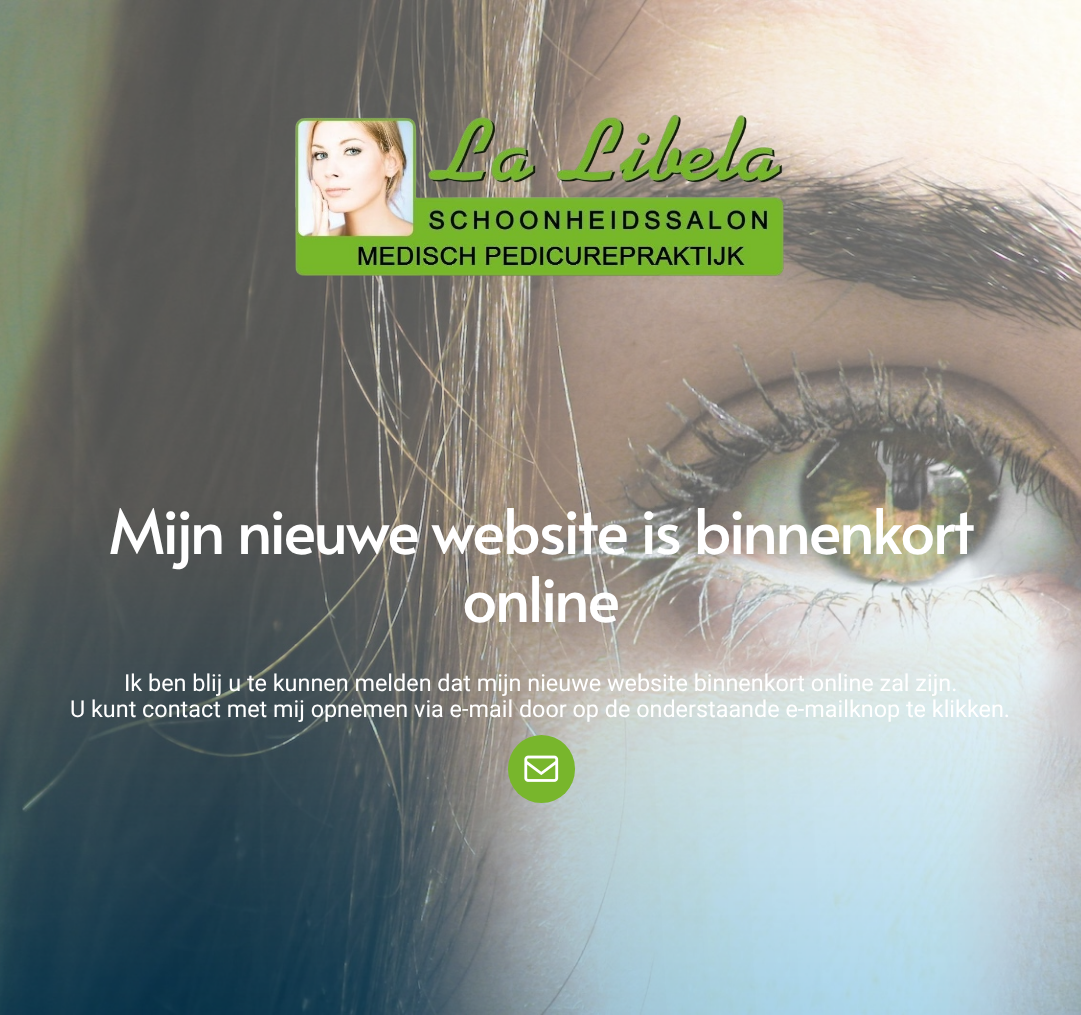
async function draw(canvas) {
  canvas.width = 1081
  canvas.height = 1015
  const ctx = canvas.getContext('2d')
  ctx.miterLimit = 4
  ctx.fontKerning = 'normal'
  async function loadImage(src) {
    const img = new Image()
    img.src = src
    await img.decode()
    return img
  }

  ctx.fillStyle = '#fff'
  ctx.fillRect(0, 0, 1081, 1015)
  ctx.drawImage(await loadImage('image0.png'), 0, 0, 1081, 1015)
  ctx.drawImage(await loadImage('image1.png'), 295, 114, 489, 163)
  ctx.letterSpacing = '-2.1px'
  ctx.font = '62.5px Alata'
  ctx.fillText('Mijn nieuwe website is binnenkort', 109, 554)
  ctx.fillText('online', 462, 622)
  ctx.letterSpacing = '0px'
  ctx.font = '23.4px Roboto'
  ctx.fillText('Ik ben blij u te kunnen melden dat mijn nieuwe website binnenkort online zal zijn.', 124, 691)
  ctx.fillText('U kunt contact met mij opnemen via e-mail door op de onderstaande e-mailknop te klikken.', 70, 717)
  ctx.fillStyle = '#78b62c'
  ctx.beginPath()
  ctx.roundRect(508, 735, 67, 68, 33.5)
  ctx.fill()
  ctx.drawImage(await loadImage('image2.png'), 524, 755, 35, 27)
}

draw(document.querySelector('canvas'))
